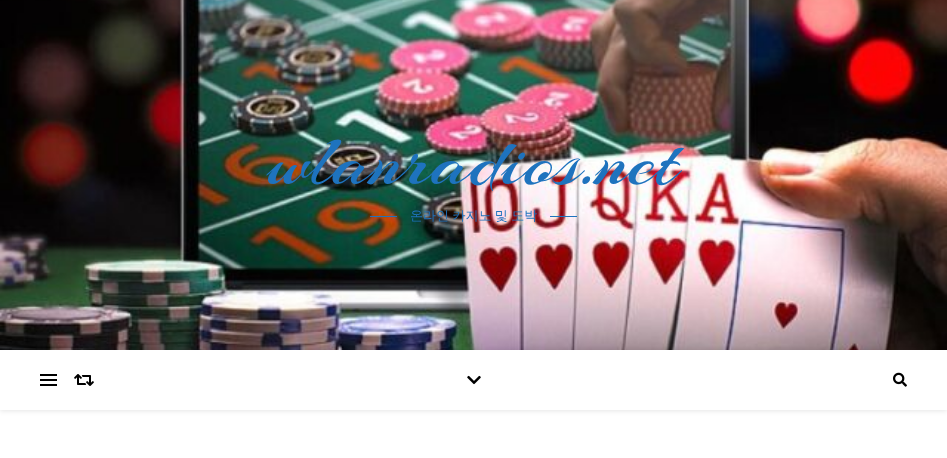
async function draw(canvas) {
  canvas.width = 947
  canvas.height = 458
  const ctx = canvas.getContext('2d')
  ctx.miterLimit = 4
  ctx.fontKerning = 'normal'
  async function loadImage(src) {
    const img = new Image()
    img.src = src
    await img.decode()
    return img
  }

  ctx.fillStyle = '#fff'
  ctx.fillRect(0, 0, 947, 458)
  ctx.drawImage(await loadImage('image0.png'), 0, 0, 947, 350)
  ctx.font = '80px Arizonia'
  ctx.fillStyle = '#1e73be'
  ctx.fillText('wlanradios.net', 268, 184)
  ctx.fillRect(370, 216, 27, 1)
  ctx.wordSpacing = '-0.5px'
  ctx.font = '500 13px WenQuanYi Zen Hei'
  ctx.fillText('온라인 카지노 및 도박', 410, 220)
  ctx.fillRect(550, 216, 27, 1)
  ctx.save()
  ctx.beginPath()
  ctx.moveTo(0, 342)
  ctx.lineTo(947, 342)
  ctx.lineTo(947, 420)
  ctx.lineTo(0, 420)
  ctx.closePath()
  ctx.moveTo(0, 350)
  ctx.lineTo(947, 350)
  ctx.lineTo(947, 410)
  ctx.lineTo(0, 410)
  ctx.closePath()
  ctx.clip('evenodd')
  ctx.fillStyle = '#0000001a'
  ctx.filter = 'blur(2.5px)'
  ctx.beginPath()
  ctx.rect(0, 351, 947, 60)
  ctx.fill()
  ctx.filter = 'none'
  ctx.restore()
  ctx.fillStyle = '#000'
  ctx.fillRect(40, 374, 17, 2)
  ctx.fillRect(40, 379, 17, 2)
  ctx.fillRect(40, 384, 17, 2)
  ctx.drawImage(await loadImage('image1.png'), 74, 374, 20, 12)
  ctx.drawImage(await loadImage('image2.png'), 467, 375, 14, 10)
  ctx.drawImage(await loadImage('image3.png'), 893, 372, 14, 15)
}

draw(document.querySelector('canvas'))
